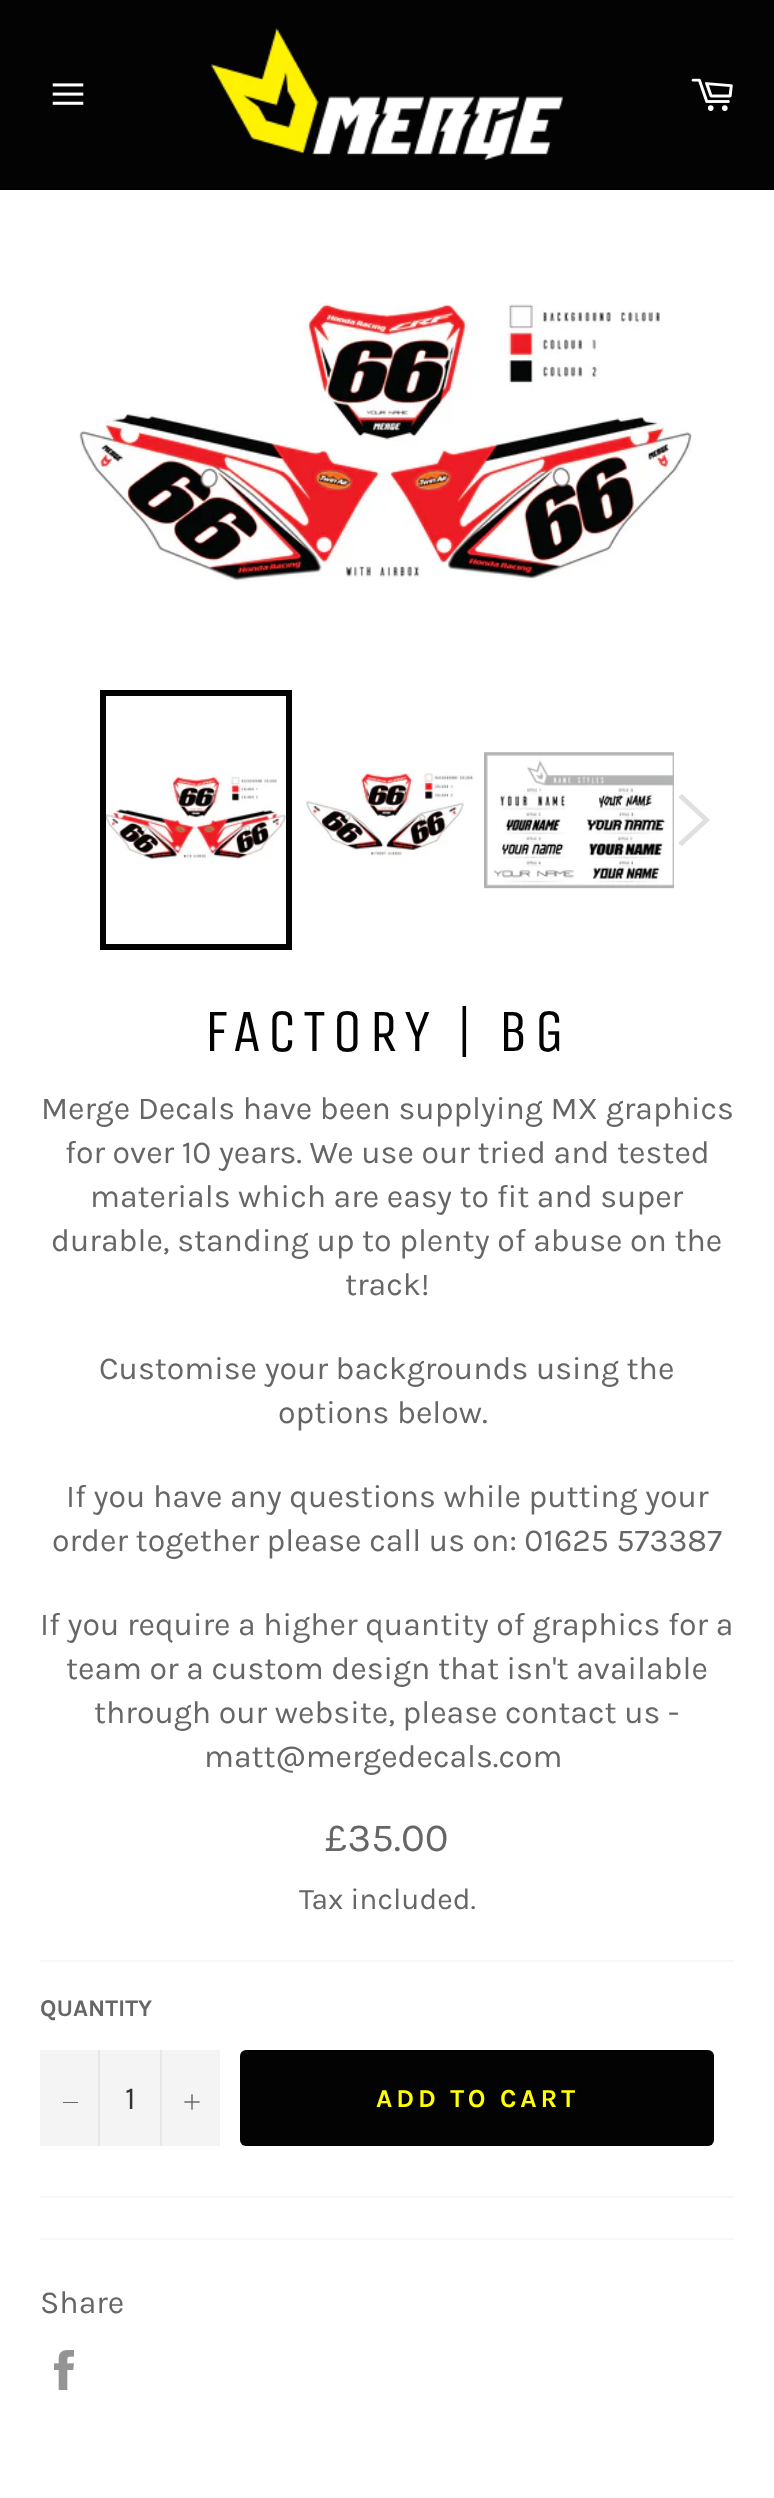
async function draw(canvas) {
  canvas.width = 774
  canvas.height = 2498
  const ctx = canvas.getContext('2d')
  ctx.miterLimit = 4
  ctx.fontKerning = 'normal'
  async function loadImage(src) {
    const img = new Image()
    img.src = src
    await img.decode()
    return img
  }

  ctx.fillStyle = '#030303'
  ctx.fillRect(0, 0, 774, 2498)
  ctx.drawImage(await loadImage('image0.png'), 52, 83, 32, 22)
  ctx.drawImage(await loadImage('image1.png'), 211, 28, 352, 132)
  ctx.drawImage(await loadImage('image2.png'), 691, 78, 42, 33)
  ctx.fillStyle = '#fff'
  ctx.fillRect(0, 190, 774, 2308)
  ctx.drawImage(await loadImage('image3.png'), 79, 303, 613, 279)
  ctx.drawImage(await loadImage('image4.png'), 106, 771, 180, 90)
  ctx.strokeStyle = '#030303'
  ctx.lineWidth = 6
  ctx.strokeRect(103, 693, 186, 254)
  ctx.drawImage(await loadImage('image5.png'), 306, 769, 168, 89)
  ctx.drawImage(await loadImage('image6.png'), 484, 752, 190, 137)
  ctx.fillStyle = '#e0e0e0'
  ctx.beginPath()
  ctx.moveTo(678, 797)
  ctx.lineTo(682, 794)
  ctx.lineTo(710, 820)
  ctx.lineTo(682, 846)
  ctx.lineTo(678, 843)
  ctx.lineTo(703, 820)
  ctx.closePath()
  ctx.fill()
  ctx.letterSpacing = '6px'
  ctx.font = '60px Unica One'
  ctx.fillStyle = '#030303'
  ctx.fillText('FACTORY | BG', 204, 1051)
  ctx.letterSpacing = '0px'
  ctx.font = '32px Karla'
  ctx.fillStyle = '#666'
  ctx.fillText('Merge Decals have been supplying MX graphics', 41, 1119)
  ctx.fillText('for over 10 years. We use our tried and tested', 65, 1163)
  ctx.fillText('materials which are easy to fit and super', 90, 1207)
  ctx.fillText('durable, standing up to plenty of abuse on the', 51, 1251)
  ctx.fillText('track!', 345, 1295)
  ctx.fillText('Customise your backgrounds using the', 99, 1379)
  ctx.fillText('options below.', 278, 1423)
  ctx.fillText('If you have any questions while putting your', 66, 1507)
  ctx.fillText('order together please call us on: 01625 573387', 52, 1551)
  ctx.fillText('If you require a higher quantity of graphics for a', 40, 1635)
  ctx.fillText('team or a custom design that isn\'t available', 66, 1679)
  ctx.fillText('through our website, please contact us -', 94, 1723)
  ctx.fillText('matt@mergedecals.com', 204, 1767)
  ctx.font = '40px Karla'
  ctx.fillText('£35.00', 325, 1851)
  ctx.font = '30px Karla'
  ctx.fillText('Tax included.', 299, 1909)
  ctx.fillStyle = '#f7f7f7'
  ctx.fillRect(40, 1960, 694, 2)
  ctx.font = 'bold 24px Karla'
  ctx.fillStyle = '#666'
  ctx.fillText('QUANTITY', 40, 2016)
  ctx.fillStyle = '#f4f4f4'
  ctx.fillRect(40, 2050, 180, 96)
  ctx.fillStyle = '#e7e7e7'
  ctx.fillRect(98, 2050, 2, 96)
  ctx.fillStyle = '#666'
  ctx.fillRect(63, 2102, 15, 1)
  ctx.font = '32px Karla'
  ctx.fillStyle = '#333'
  ctx.fillText('1', 125, 2109)
  ctx.fillStyle = '#e7e7e7'
  ctx.fillRect(160, 2050, 2, 96)
  ctx.drawImage(await loadImage('image7.png'), 184, 2094, 16, 16)
  ctx.fillStyle = '#030303'
  ctx.beginPath()
  ctx.roundRect(240, 2050, 474, 96, 6)
  ctx.fill()
  ctx.letterSpacing = '3.9px'
  ctx.font = 'bold 26px Karla'
  ctx.fillStyle = '#ff0'
  ctx.fillText('ADD TO CART', 376, 2107)
  ctx.fillStyle = '#f7f7f7'
  ctx.fillRect(40, 2196, 694, 2)
  ctx.fillRect(40, 2238, 694, 2)
  ctx.letterSpacing = '0px'
  ctx.font = '32px Karla'
  ctx.fillStyle = '#666'
  ctx.fillText('Share', 40, 2313)
  ctx.drawImage(await loadImage('image8.png'), 54, 2350, 20, 40)
}

draw(document.querySelector('canvas'))
